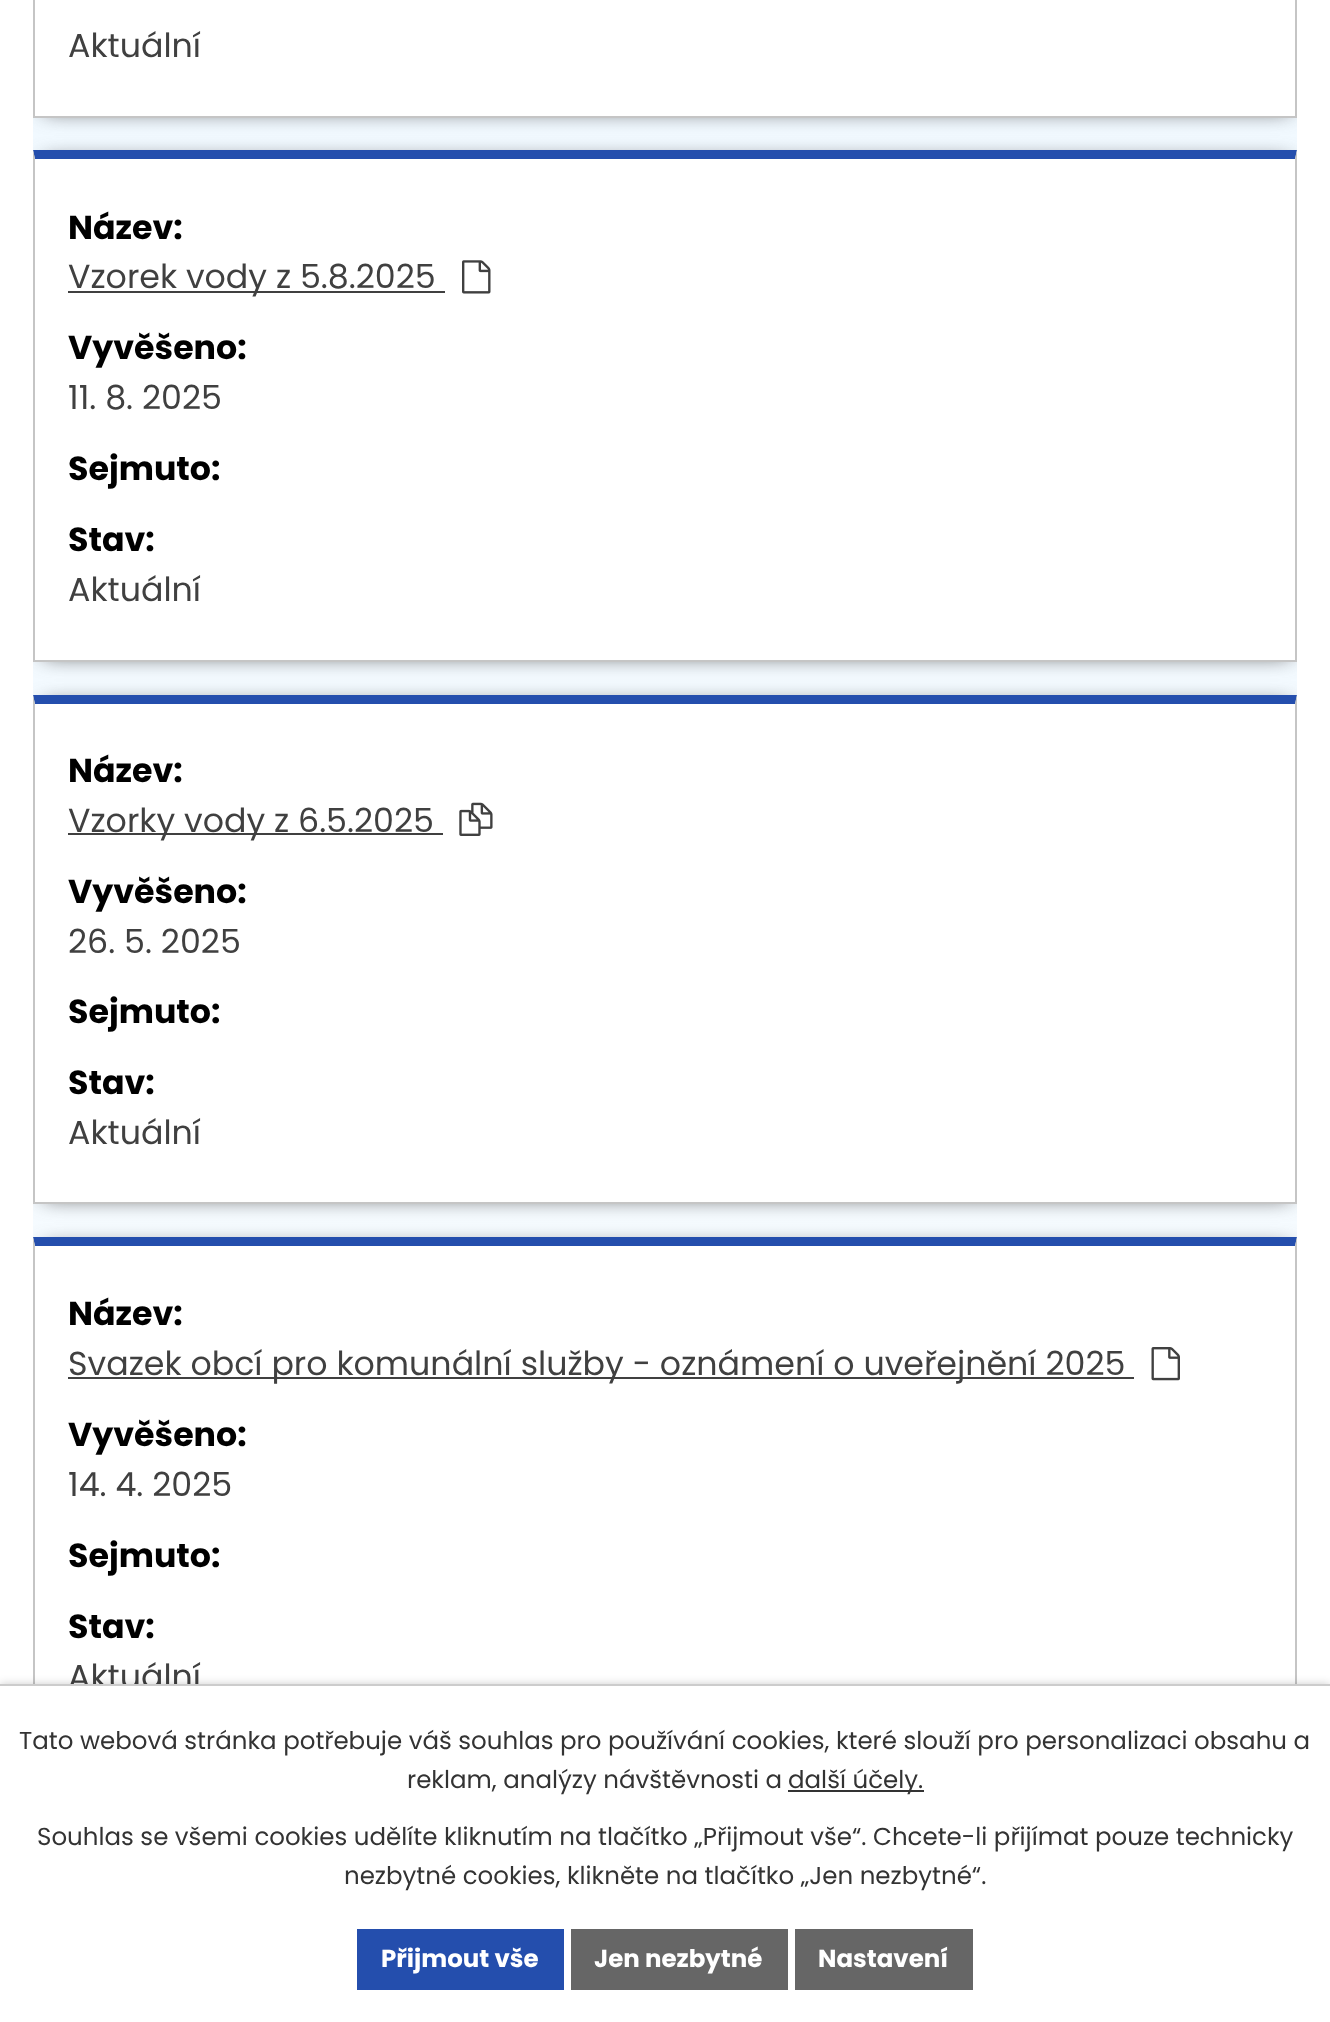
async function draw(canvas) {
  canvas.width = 1330
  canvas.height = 2022
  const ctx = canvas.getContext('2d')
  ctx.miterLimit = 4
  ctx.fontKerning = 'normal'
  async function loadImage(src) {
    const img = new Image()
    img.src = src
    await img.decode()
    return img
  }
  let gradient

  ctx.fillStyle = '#fff'
  ctx.fillRect(0, 0, 1330, 2022)
  gradient = ctx.createLinearGradient(665, 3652, 665, -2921)
  gradient.addColorStop(0, '#fff')
  gradient.addColorStop(1, '#e5f4ff')
  ctx.fillStyle = gradient
  ctx.fillRect(33, 118, 1264, 1128)
  ctx.save()
  ctx.beginPath()
  ctx.rect(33, 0, 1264, 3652)
  ctx.clip()
  ctx.fillStyle = '#404040'
  ctx.filter = 'blur(10.5px)'
  ctx.beginPath()
  ctx.rect(44, -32, 1246, 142)
  ctx.fill()
  ctx.filter = 'none'
  ctx.restore()
  ctx.fillStyle = '#fff'
  ctx.fillRect(35, 0, 1260, 116)
  ctx.fillStyle = '#c5c5c5'
  ctx.beginPath()
  ctx.moveTo(1297, -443)
  ctx.lineTo(1297, 117)
  ctx.lineTo(1295, 116)
  ctx.lineTo(1295, -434)
  ctx.closePath()
  ctx.fill()
  ctx.fillRect(33, 116, 1264, 2)
  ctx.beginPath()
  ctx.moveTo(33, 117)
  ctx.lineTo(33, -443)
  ctx.lineTo(35, -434)
  ctx.lineTo(35, 116)
  ctx.closePath()
  ctx.fill()
  ctx.font = '33.25px Poppins'
  ctx.fillStyle = '#404040'
  ctx.fillText('Aktuální', 68, 57)
  ctx.save()
  ctx.beginPath()
  ctx.rect(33, 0, 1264, 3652)
  ctx.clip()
  ctx.filter = 'blur(10.5px)'
  ctx.beginPath()
  ctx.rect(44, 161, 1246, 494)
  ctx.fill()
  ctx.filter = 'none'
  ctx.restore()
  ctx.fillStyle = '#fff'
  ctx.fillRect(35, 159, 1260, 501)
  ctx.fillStyle = '#244ead'
  ctx.beginPath()
  ctx.moveTo(33, 150)
  ctx.lineTo(1297, 150)
  ctx.lineTo(1295, 159)
  ctx.lineTo(35, 159)
  ctx.closePath()
  ctx.fill()
  ctx.fillStyle = '#c5c5c5'
  ctx.beginPath()
  ctx.moveTo(1297, 150)
  ctx.lineTo(1297, 662)
  ctx.lineTo(1295, 660)
  ctx.lineTo(1295, 159)
  ctx.closePath()
  ctx.fill()
  ctx.fillRect(33, 660, 1264, 2)
  ctx.beginPath()
  ctx.moveTo(33, 662)
  ctx.lineTo(33, 150)
  ctx.lineTo(35, 159)
  ctx.lineTo(35, 660)
  ctx.closePath()
  ctx.fill()
  ctx.font = 'bold 33.25px Poppins'
  ctx.fillStyle = '#000'
  ctx.fillText('Název:', 68, 239)
  ctx.fillStyle = '#404040'
  ctx.fillRect(68, 291, 377, 2)
  ctx.font = '33.25px Poppins'
  ctx.fillText('Vzorek vody z 5.8.2025', 68, 288)
  ctx.drawImage(await loadImage('image0.png'), 462, 260, 29, 34)
  ctx.font = 'bold 33.25px Poppins'
  ctx.fillStyle = '#000'
  ctx.fillText('Vyvěšeno:', 68, 359)
  ctx.font = '33.25px Poppins'
  ctx.fillStyle = '#404040'
  ctx.fillText('11. 8. 2025', 68, 409)
  ctx.font = 'bold 33.25px Poppins'
  ctx.fillStyle = '#000'
  ctx.fillText('Sejmuto:', 68, 480)
  ctx.fillText('Stav:', 68, 551)
  ctx.font = '33.25px Poppins'
  ctx.fillStyle = '#404040'
  ctx.fillText('Aktuální', 68, 601)
  ctx.save()
  ctx.beginPath()
  ctx.rect(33, 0, 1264, 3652)
  ctx.clip()
  ctx.filter = 'blur(10.5px)'
  ctx.beginPath()
  ctx.rect(44, 705, 1246, 492)
  ctx.fill()
  ctx.filter = 'none'
  ctx.restore()
  ctx.fillStyle = '#fff'
  ctx.fillRect(35, 704, 1260, 498)
  ctx.fillStyle = '#244ead'
  ctx.beginPath()
  ctx.moveTo(33, 695)
  ctx.lineTo(1297, 695)
  ctx.lineTo(1295, 704)
  ctx.lineTo(35, 704)
  ctx.closePath()
  ctx.fill()
  ctx.fillStyle = '#c5c5c5'
  ctx.beginPath()
  ctx.moveTo(1297, 695)
  ctx.lineTo(1297, 1204)
  ctx.lineTo(1295, 1202)
  ctx.lineTo(1295, 704)
  ctx.closePath()
  ctx.fill()
  ctx.fillRect(33, 1202, 1264, 2)
  ctx.beginPath()
  ctx.moveTo(33, 1204)
  ctx.lineTo(33, 695)
  ctx.lineTo(35, 704)
  ctx.lineTo(35, 1202)
  ctx.closePath()
  ctx.fill()
  ctx.font = 'bold 33.25px Poppins'
  ctx.fillStyle = '#000'
  ctx.fillText('Název:', 68, 782)
  ctx.fillStyle = '#404040'
  ctx.fillRect(68, 833, 375, 2)
  ctx.font = '33.25px Poppins'
  ctx.fillText('Vzorky vody z 6.5.2025', 68, 832)
  ctx.drawImage(await loadImage('image1.png'), 459, 802, 34, 34)
  ctx.font = 'bold 33.25px Poppins'
  ctx.fillStyle = '#000'
  ctx.fillText('Vyvěšeno:', 68, 903)
  ctx.font = '33.25px Poppins'
  ctx.fillStyle = '#404040'
  ctx.fillText('26. 5. 2025', 68, 953)
  ctx.font = 'bold 33.25px Poppins'
  ctx.fillStyle = '#000'
  ctx.fillText('Sejmuto:', 68, 1023)
  ctx.fillText('Stav:', 68, 1094)
  ctx.font = '33.25px Poppins'
  ctx.fillStyle = '#404040'
  ctx.fillText('Aktuální', 68, 1144)
  ctx.save()
  ctx.beginPath()
  ctx.rect(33, 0, 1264, 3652)
  ctx.clip()
  ctx.filter = 'blur(10.5px)'
  ctx.beginPath()
  ctx.rect(44, 1248, 1246, 493)
  ctx.fill()
  ctx.filter = 'none'
  ctx.restore()
  ctx.fillStyle = '#fff'
  ctx.fillRect(35, 1246, 1260, 438)
  ctx.fillStyle = '#244ead'
  ctx.beginPath()
  ctx.moveTo(33, 1237)
  ctx.lineTo(1297, 1237)
  ctx.lineTo(1295, 1246)
  ctx.lineTo(35, 1246)
  ctx.closePath()
  ctx.fill()
  ctx.fillStyle = '#c5c5c5'
  ctx.beginPath()
  ctx.moveTo(1297, 1237)
  ctx.lineTo(1297, 1748)
  ctx.lineTo(1295, 1746)
  ctx.lineTo(1295, 1246)
  ctx.closePath()
  ctx.fill()
  ctx.beginPath()
  ctx.moveTo(33, 1748)
  ctx.lineTo(33, 1237)
  ctx.lineTo(35, 1246)
  ctx.lineTo(35, 1746)
  ctx.closePath()
  ctx.fill()
  ctx.font = 'bold 33.25px Poppins'
  ctx.fillStyle = '#000'
  ctx.fillText('Název:', 68, 1325)
  ctx.fillStyle = '#404040'
  ctx.fillRect(68, 1377, 1066, 2)
  ctx.font = '33.25px Poppins'
  ctx.fillText('Svazek obcí pro komunální služby - oznámení o uveřejnění 2025', 68, 1375)
  ctx.drawImage(await loadImage('image2.png'), 1151, 1347, 29, 34)
  ctx.font = 'bold 33.25px Poppins'
  ctx.fillStyle = '#000'
  ctx.fillText('Vyvěšeno:', 68, 1446)
  ctx.font = '33.25px Poppins'
  ctx.fillStyle = '#404040'
  ctx.fillText('14. 4. 2025', 68, 1496)
  ctx.font = 'bold 33.25px Poppins'
  ctx.fillStyle = '#000'
  ctx.fillText('Sejmuto:', 68, 1567)
  ctx.fillText('Stav:', 68, 1638)
  ctx.font = '33.25px Poppins'
  ctx.fillStyle = '#404040'
  ctx.fillText('Aktuální', 68, 1688)
  ctx.fillStyle = '#00000033'
  ctx.filter = 'blur(4.5px)'
  ctx.beginPath()
  ctx.rect(0, 1684, 1330, 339)
  ctx.fill()
  ctx.filter = 'none'
  ctx.fillStyle = '#fff'
  ctx.fillRect(0, 1686, 1330, 336)
  ctx.fillStyle = '#ccc'
  ctx.fillRect(0, 1684, 1330, 2)
  ctx.font = '24.5px Poppins'
  ctx.fillStyle = '#333'
  ctx.fillText('Tato webová stránka potřebuje váš souhlas pro používání cookies, které slouží pro personalizaci obsahu a', 19, 1749)
  ctx.fillText('reklam, analýzy návštěvnosti a', 407, 1788)
  ctx.fillRect(788, 1790, 136, 2)
  ctx.fillText('další účely.', 788, 1788)
  ctx.fillText('Souhlas se všemi cookies udělíte kliknutím na tlačítko „Přijmout vše“. Chcete-li přijímat pouze technicky', 37, 1845)
  ctx.fillText('nezbytné cookies, klikněte na tlačítko „Jen nezbytné“.', 344, 1884)
  ctx.fillStyle = '#244ead'
  ctx.fillRect(357, 1929, 207, 61)
  ctx.font = 'bold 24.5px Poppins'
  ctx.fillStyle = '#fff'
  ctx.fillText('Přijmout vše', 381, 1967)
  ctx.fillStyle = '#666'
  ctx.fillRect(571, 1929, 217, 61)
  ctx.fillStyle = '#fff'
  ctx.fillText('Jen nezbytné', 594, 1967)
  ctx.fillStyle = '#666'
  ctx.fillRect(795, 1929, 178, 61)
  ctx.fillStyle = '#fff'
  ctx.fillText('Nastavení', 818, 1967)
}

draw(document.querySelector('canvas'))
